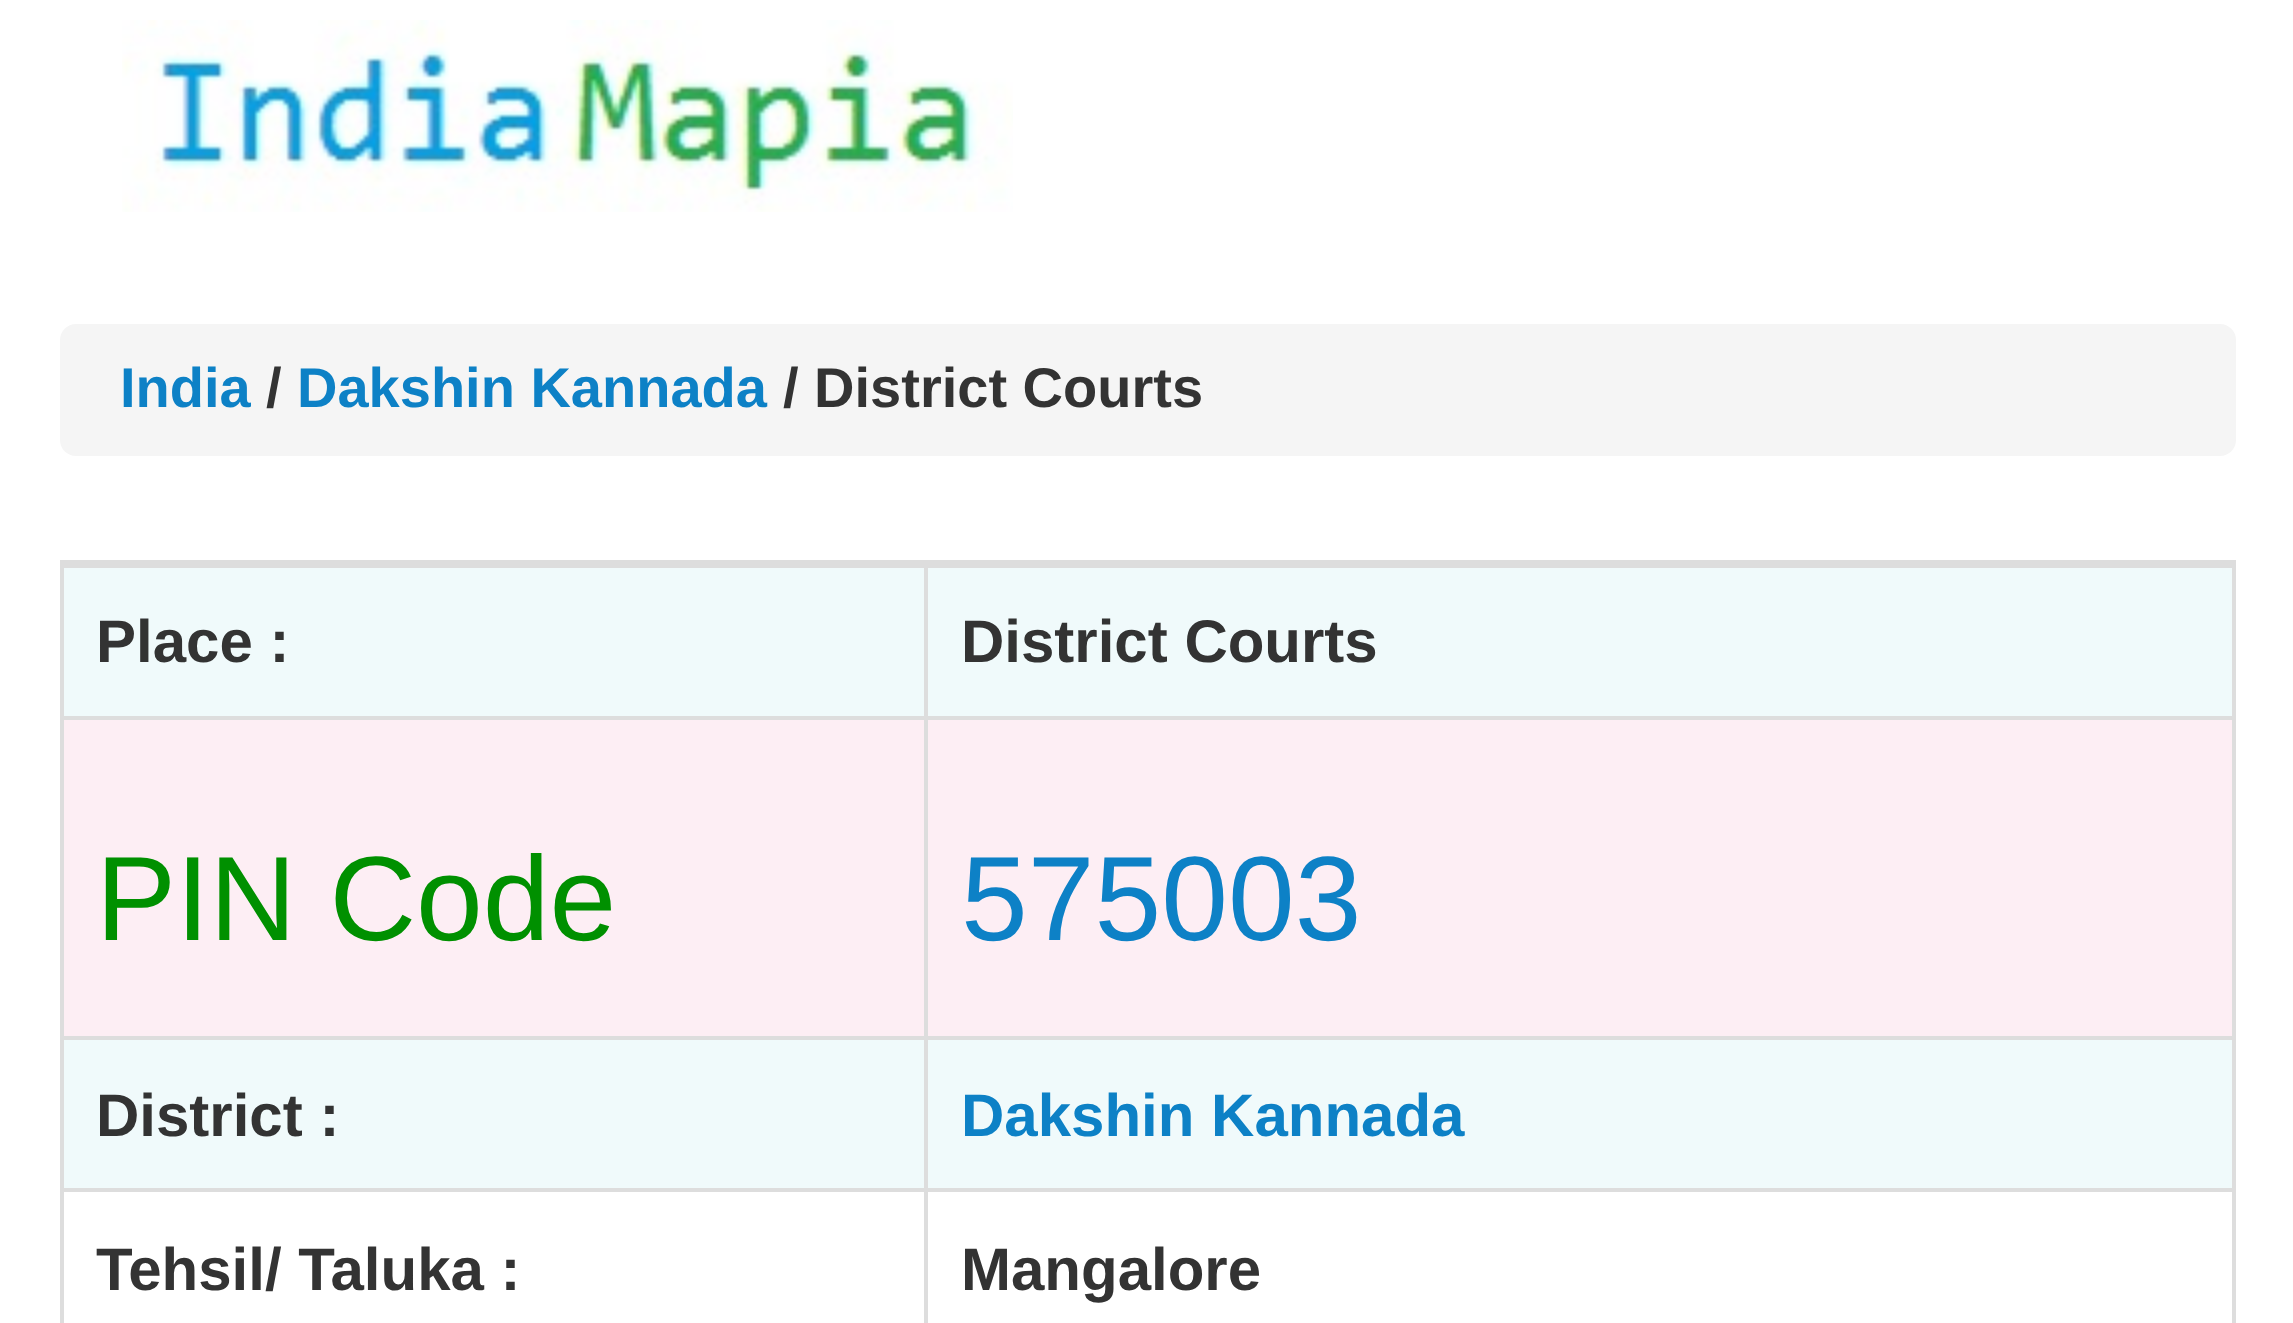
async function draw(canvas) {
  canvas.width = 2293
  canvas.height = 1323
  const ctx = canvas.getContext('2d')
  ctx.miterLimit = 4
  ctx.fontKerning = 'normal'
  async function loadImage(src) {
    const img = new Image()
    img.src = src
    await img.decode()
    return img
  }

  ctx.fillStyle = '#fff'
  ctx.fillRect(0, 0, 2293, 1323)
  ctx.drawImage(await loadImage('image0.png'), 122, 20, 891, 192)
  ctx.fillStyle = '#f5f5f5'
  ctx.beginPath()
  ctx.roundRect(60, 324, 2176, 132, 16)
  ctx.fill()
  ctx.font = 'bold 56px Liberation Sans'
  ctx.fillStyle = '#0d81c6'
  ctx.fillText('India', 120, 407)
  ctx.fillStyle = '#333'
  ctx.fillText('/', 266, 407)
  ctx.fillStyle = '#0d81c6'
  ctx.fillText('Dakshin Kannada', 297, 407)
  ctx.fillStyle = '#333'
  ctx.fillText('/ District Courts', 783, 407)
  ctx.strokeStyle = '#ddd'
  ctx.lineWidth = 4
  ctx.strokeRect(62, 562, 2172, 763)
  ctx.fillStyle = '#f0fafb'
  ctx.fillRect(64, 568, 2168, 148)
  ctx.fillStyle = '#ddd'
  ctx.fillRect(924, 564, 1308, 4)
  ctx.fillRect(924, 716, 1308, 4)
  ctx.fillRect(924, 1036, 1308, 4)
  ctx.fillStyle = '#f0fafb'
  ctx.fillRect(64, 1040, 2168, 148)
  ctx.fillStyle = '#ddd'
  ctx.fillRect(924, 1188, 1308, 4)
  ctx.fillRect(924, 1188, 4, 135)
  ctx.fillRect(64, 1188, 864, 4)
  ctx.fillRect(924, 1036, 4, 156)
  ctx.fillRect(64, 1036, 864, 4)
  ctx.fillRect(924, 716, 4, 324)
  ctx.fillRect(64, 716, 864, 4)
  ctx.fillRect(924, 564, 4, 156)
  ctx.fillRect(64, 564, 864, 4)
  ctx.font = 'bold 60px Liberation Sans'
  ctx.fillStyle = '#333'
  ctx.fillText('Place :', 96, 662)
  ctx.fillText('District Courts', 961, 662)
  ctx.fillStyle = '#fdeef4'
  ctx.fillRect(64, 720, 860, 316)
  ctx.font = '120px Liberation Sans'
  ctx.fillStyle = '#009000'
  ctx.fillText('PIN Code', 96, 940)
  ctx.fillStyle = '#fdeef4'
  ctx.fillRect(928, 720, 1304, 316)
  ctx.fillStyle = '#0d81c6'
  ctx.fillText('575003', 961, 940)
  ctx.font = 'bold 60px Liberation Sans'
  ctx.fillStyle = '#333'
  ctx.fillText('District :', 96, 1136)
  ctx.fillStyle = '#0d81c6'
  ctx.fillText('Dakshin Kannada', 961, 1136)
  ctx.fillStyle = '#333'
  ctx.fillText('Tehsil/ Taluka :', 96, 1290)
  ctx.fillText('Mangalore', 961, 1290)
}

draw(document.querySelector('canvas'))
